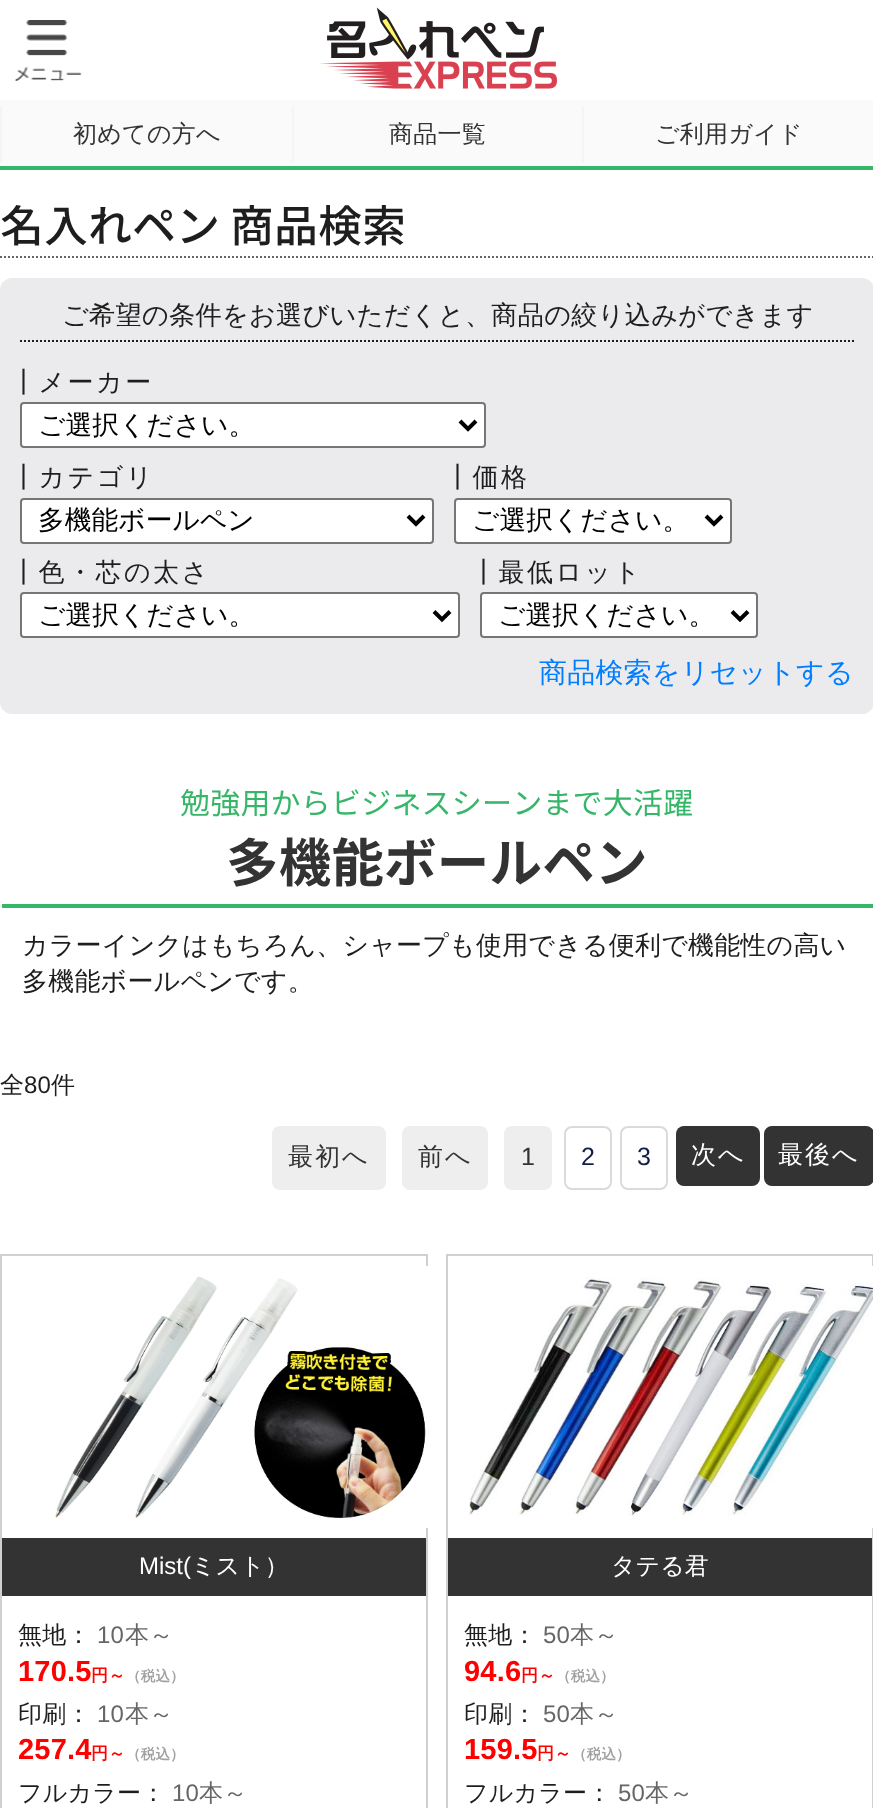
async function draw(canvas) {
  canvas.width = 873
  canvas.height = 1808
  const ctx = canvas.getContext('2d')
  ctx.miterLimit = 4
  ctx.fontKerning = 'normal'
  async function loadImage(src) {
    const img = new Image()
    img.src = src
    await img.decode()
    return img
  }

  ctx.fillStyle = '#fff'
  ctx.fillRect(0, 0, 873, 1808)
  ctx.fillStyle = '#fafafa'
  ctx.fillRect(0, 100, 873, 66)
  ctx.fillStyle = '#36b668'
  ctx.fillRect(0, 166, 873, 4)
  ctx.drawImage(await loadImage('image0.png'), 15, 20, 67, 61)
  ctx.drawImage(await loadImage('image1.png'), 320, 7, 237, 82)
  ctx.fillStyle = '#f5f5f5'
  ctx.fillRect(0, 106, 2, 56)
  ctx.letterSpacing = '0.25px'
  ctx.font = '500 24px WenQuanYi Zen Hei'
  ctx.fillStyle = '#333'
  ctx.fillText('初めての方へ', 73, 142)
  ctx.fillStyle = '#f5f5f5'
  ctx.fillRect(292, 106, 2, 56)
  ctx.fillStyle = '#333'
  ctx.fillText('商品一覧', 389, 142)
  ctx.fillStyle = '#f5f5f5'
  ctx.fillRect(582, 106, 2, 56)
  ctx.fillStyle = '#333'
  ctx.fillText('ご利用ガイド', 655, 142)
  ctx.beginPath()
  ctx.moveTo(0, 257)
  ctx.lineTo(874, 257)
  ctx.strokeStyle = '#666'
  ctx.lineWidth = 2
  ctx.setLineDash([2, 2])
  ctx.stroke()
  ctx.letterSpacing = '0px'
  ctx.font = '500 44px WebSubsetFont'
  ctx.fillStyle = '#1e1e1e'
  ctx.fillText('名入れペン 商品検索', 0, 242)
  ctx.fillStyle = '#ebebed'
  ctx.beginPath()
  ctx.roundRect(0, 278, 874, 436, 12)
  ctx.fill()
  ctx.beginPath()
  ctx.moveTo(20, 341)
  ctx.lineTo(854, 341)
  ctx.strokeStyle = '#1e1e1e'
  ctx.stroke()
  ctx.letterSpacing = '0.2px'
  ctx.font = '500 26.25px WenQuanYi Zen Hei'
  ctx.fillStyle = '#1e1e1e'
  ctx.fillText('ご希望の条件をお選びいただくと、商品の絞り込みができます', 62, 324)
  ctx.letterSpacing = '2.5px'
  ctx.font = '500 26px WenQuanYi Zen Hei'
  ctx.fillText('┃メーカー', 10, 391)
  ctx.fillStyle = '#fff'
  ctx.beginPath()
  ctx.roundRect(21, 403, 464, 44, 3)
  ctx.fill()
  ctx.strokeStyle = '#767676'
  ctx.setLineDash([])
  ctx.stroke()
  ctx.beginPath()
  ctx.moveTo(460, 421)
  ctx.lineTo(468, 429)
  ctx.lineTo(476, 421)
  ctx.strokeStyle = '#000'
  ctx.lineWidth = 4
  ctx.stroke()
  ctx.letterSpacing = '0px'
  ctx.font = '500 26.75px WenQuanYi Zen Hei'
  ctx.fillStyle = '#000'
  ctx.fillText('ご選択ください。', 38, 434)
  ctx.letterSpacing = '2.5px'
  ctx.font = '500 26px WenQuanYi Zen Hei'
  ctx.fillStyle = '#1e1e1e'
  ctx.fillText('┃カテゴリ', 10, 486)
  ctx.fillStyle = '#fff'
  ctx.beginPath()
  ctx.roundRect(21, 499, 412, 44, 3)
  ctx.fill()
  ctx.strokeStyle = '#767676'
  ctx.lineWidth = 2
  ctx.stroke()
  ctx.beginPath()
  ctx.moveTo(408, 516)
  ctx.lineTo(416, 524)
  ctx.lineTo(424, 516)
  ctx.strokeStyle = '#000'
  ctx.lineWidth = 4
  ctx.stroke()
  ctx.letterSpacing = '0px'
  ctx.font = '500 26.75px WenQuanYi Zen Hei'
  ctx.fillStyle = '#000'
  ctx.fillText('多機能ボールペン', 38, 529)
  ctx.letterSpacing = '2.5px'
  ctx.font = '500 26px WenQuanYi Zen Hei'
  ctx.fillStyle = '#1e1e1e'
  ctx.fillText('┃価格', 444, 486)
  ctx.fillStyle = '#fff'
  ctx.beginPath()
  ctx.roundRect(455, 499, 276, 44, 3)
  ctx.fill()
  ctx.strokeStyle = '#767676'
  ctx.lineWidth = 2
  ctx.stroke()
  ctx.beginPath()
  ctx.moveTo(706, 516)
  ctx.lineTo(714, 524)
  ctx.lineTo(722, 516)
  ctx.strokeStyle = '#000'
  ctx.lineWidth = 4
  ctx.stroke()
  ctx.letterSpacing = '0px'
  ctx.font = '500 26.75px WenQuanYi Zen Hei'
  ctx.fillStyle = '#000'
  ctx.fillText('ご選択ください。', 472, 529)
  ctx.letterSpacing = '2.5px'
  ctx.font = '500 26px WenQuanYi Zen Hei'
  ctx.fillStyle = '#1e1e1e'
  ctx.fillText('┃色・芯の太さ', 10, 581)
  ctx.fillStyle = '#fff'
  ctx.beginPath()
  ctx.roundRect(21, 593, 438, 44, 3)
  ctx.fill()
  ctx.strokeStyle = '#767676'
  ctx.lineWidth = 2
  ctx.stroke()
  ctx.beginPath()
  ctx.moveTo(434, 611.5)
  ctx.lineTo(442, 619.5)
  ctx.lineTo(450, 611.5)
  ctx.strokeStyle = '#000'
  ctx.lineWidth = 4
  ctx.stroke()
  ctx.letterSpacing = '0px'
  ctx.font = '500 26.75px WenQuanYi Zen Hei'
  ctx.fillStyle = '#000'
  ctx.fillText('ご選択ください。', 38, 624)
  ctx.letterSpacing = '2.5px'
  ctx.font = '500 26px WenQuanYi Zen Hei'
  ctx.fillStyle = '#1e1e1e'
  ctx.fillText('┃最低ロット', 470, 581)
  ctx.fillStyle = '#fff'
  ctx.beginPath()
  ctx.roundRect(481, 593, 276, 44, 3)
  ctx.fill()
  ctx.strokeStyle = '#767676'
  ctx.lineWidth = 2
  ctx.stroke()
  ctx.beginPath()
  ctx.moveTo(732, 611.5)
  ctx.lineTo(740, 619.5)
  ctx.lineTo(748, 611.5)
  ctx.strokeStyle = '#000'
  ctx.lineWidth = 4
  ctx.stroke()
  ctx.letterSpacing = '0px'
  ctx.font = '500 26.75px WenQuanYi Zen Hei'
  ctx.fillStyle = '#000'
  ctx.fillText('ご選択ください。', 498, 624)
  ctx.letterSpacing = '0.2px'
  ctx.font = '500 28px WenQuanYi Zen Hei'
  ctx.fillStyle = '#007eff'
  ctx.fillText('商品検索をリセットする', 539, 682)
  ctx.fillStyle = '#36b668'
  ctx.fillRect(2, 904, 871, 4)
  ctx.font = '30px WebSubsetFont'
  ctx.fillText('勉強用からビジネスシーンまで大活躍', 180, 814)
  ctx.font = 'bold 52.5px WebSubsetFont'
  ctx.fillStyle = '#333'
  ctx.fillText('多機能ボールペン', 226, 882)
  ctx.font = '500 26px WenQuanYi Zen Hei'
  ctx.fillStyle = '#1e1e1e'
  ctx.fillText('カラーインクはもちろん、シャープも使用できる便利で機能性の高い', 22, 954)
  ctx.fillText('多機能ボールペンです。', 22, 990)
  ctx.font = '500 24px WenQuanYi Zen Hei'
  ctx.fillText('全', 0, 1093)
  ctx.font = '24px Liberation Sans'
  ctx.fillText('80', 24, 1093)
  ctx.font = '500 24px WenQuanYi Zen Hei'
  ctx.fillText('件', 51, 1093)
  ctx.fillStyle = '#eee'
  ctx.beginPath()
  ctx.roundRect(273, 1127, 112, 62, 7)
  ctx.fill()
  ctx.strokeStyle = '#eee'
  ctx.lineWidth = 2
  ctx.stroke()
  ctx.letterSpacing = '2px'
  ctx.font = '500 25px WenQuanYi Zen Hei'
  ctx.fillStyle = '#333'
  ctx.fillText('最初へ', 288, 1165)
  ctx.fillStyle = '#eee'
  ctx.beginPath()
  ctx.roundRect(403, 1127, 84, 62, 7)
  ctx.fill()
  ctx.stroke()
  ctx.fillStyle = '#333'
  ctx.fillText('前へ', 418, 1165)
  ctx.fillStyle = '#eee'
  ctx.beginPath()
  ctx.roundRect(505, 1127, 46, 62, 7)
  ctx.fill()
  ctx.stroke()
  ctx.font = '25px Liberation Sans'
  ctx.fillStyle = '#333'
  ctx.fillText('1', 521, 1165)
  ctx.beginPath()
  ctx.roundRect(565, 1127, 46, 62, 7)
  ctx.strokeStyle = '#dadada'
  ctx.stroke()
  ctx.fillStyle = '#131b49'
  ctx.fillText('2', 581, 1165)
  ctx.beginPath()
  ctx.roundRect(621, 1127, 46, 62, 7)
  ctx.stroke()
  ctx.fillText('3', 637, 1165)
  ctx.fillStyle = '#333'
  ctx.beginPath()
  ctx.roundRect(676, 1126, 84, 60, 8)
  ctx.fill()
  ctx.font = '500 25px WenQuanYi Zen Hei'
  ctx.fillStyle = '#fff'
  ctx.fillText('次へ', 691, 1163)
  ctx.fillStyle = '#333'
  ctx.beginPath()
  ctx.roundRect(764, 1126, 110, 60, 8)
  ctx.fill()
  ctx.fillStyle = '#fff'
  ctx.fillText('最後へ', 778, 1163)
  ctx.strokeStyle = '#d0d0d0'
  ctx.strokeRect(1, 1255, 426, 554)
  ctx.drawImage(await loadImage('image2.png'), 55, 1266, 373, 262)
  ctx.fillStyle = '#333'
  ctx.fillRect(2, 1538, 424, 58)
  ctx.letterSpacing = '0px'
  ctx.font = '24px Liberation Sans'
  ctx.fillStyle = '#fff'
  ctx.fillText('Mist(', 139, 1574)
  ctx.font = '500 24px WenQuanYi Zen Hei'
  ctx.fillText('ミスト）', 191, 1574)
  ctx.letterSpacing = '0.2px'
  ctx.fillStyle = '#1e1e1e'
  ctx.fillText('無地：', 18, 1643)
  ctx.font = '24px Liberation Sans'
  ctx.fillStyle = '#666'
  ctx.fillText('10', 97, 1643)
  ctx.font = '500 24px WenQuanYi Zen Hei'
  ctx.fillText('本～', 125, 1643)
  ctx.font = 'bold 29px Liberation Sans'
  ctx.fillStyle = '#f00'
  ctx.fillText('170.5', 18, 1681)
  ctx.font = 'bold 17px WenQuanYi Zen Hei'
  ctx.fillText('円～', 91, 1681)
  ctx.font = 'bold 14.5px WenQuanYi Zen Hei'
  ctx.fillStyle = '#a1a1a1'
  ctx.fillText('（税込）', 126, 1681)
  ctx.font = '500 24px WenQuanYi Zen Hei'
  ctx.fillStyle = '#1e1e1e'
  ctx.fillText('印刷：', 18, 1722)
  ctx.font = '24px Liberation Sans'
  ctx.fillStyle = '#666'
  ctx.fillText('10', 97, 1722)
  ctx.font = '500 24px WenQuanYi Zen Hei'
  ctx.fillText('本～', 125, 1722)
  ctx.font = 'bold 29px Liberation Sans'
  ctx.fillStyle = '#f00'
  ctx.fillText('257.4', 18, 1759)
  ctx.font = 'bold 17px WenQuanYi Zen Hei'
  ctx.fillText('円～', 91, 1759)
  ctx.font = 'bold 14.5px WenQuanYi Zen Hei'
  ctx.fillStyle = '#a1a1a1'
  ctx.fillText('（税込）', 126, 1759)
  ctx.font = '500 24px WenQuanYi Zen Hei'
  ctx.fillStyle = '#1e1e1e'
  ctx.fillText('フルカラー：', 18, 1801)
  ctx.font = '24px Liberation Sans'
  ctx.fillStyle = '#666'
  ctx.fillText('10', 172, 1801)
  ctx.font = '500 24px WenQuanYi Zen Hei'
  ctx.fillText('本～', 199, 1801)
  ctx.strokeRect(447, 1255, 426, 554)
  ctx.drawImage(await loadImage('image3.png'), 469, 1266, 404, 262)
  ctx.fillStyle = '#333'
  ctx.fillRect(448, 1538, 424, 58)
  ctx.letterSpacing = '0px'
  ctx.fillStyle = '#fff'
  ctx.fillText('タテる君', 611, 1574)
  ctx.letterSpacing = '0.2px'
  ctx.fillStyle = '#1e1e1e'
  ctx.fillText('無地：', 464, 1643)
  ctx.font = '24px Liberation Sans'
  ctx.fillStyle = '#666'
  ctx.fillText('50', 543, 1643)
  ctx.font = '500 24px WenQuanYi Zen Hei'
  ctx.fillText('本～', 570, 1643)
  ctx.font = 'bold 29px Liberation Sans'
  ctx.fillStyle = '#f00'
  ctx.fillText('94.6', 464, 1681)
  ctx.font = 'bold 17px WenQuanYi Zen Hei'
  ctx.fillText('円～', 521, 1681)
  ctx.font = 'bold 14.5px WenQuanYi Zen Hei'
  ctx.fillStyle = '#a1a1a1'
  ctx.fillText('（税込）', 556, 1681)
  ctx.font = '500 24px WenQuanYi Zen Hei'
  ctx.fillStyle = '#1e1e1e'
  ctx.fillText('印刷：', 464, 1722)
  ctx.font = '24px Liberation Sans'
  ctx.fillStyle = '#666'
  ctx.fillText('50', 543, 1722)
  ctx.font = '500 24px WenQuanYi Zen Hei'
  ctx.fillText('本～', 570, 1722)
  ctx.font = 'bold 29px Liberation Sans'
  ctx.fillStyle = '#f00'
  ctx.fillText('159.5', 464, 1759)
  ctx.font = 'bold 17px WenQuanYi Zen Hei'
  ctx.fillText('円～', 537, 1759)
  ctx.font = 'bold 14.5px WenQuanYi Zen Hei'
  ctx.fillStyle = '#a1a1a1'
  ctx.fillText('（税込）', 572, 1759)
  ctx.font = '500 24px WenQuanYi Zen Hei'
  ctx.fillStyle = '#1e1e1e'
  ctx.fillText('フルカラー：', 464, 1801)
  ctx.font = '24px Liberation Sans'
  ctx.fillStyle = '#666'
  ctx.fillText('50', 618, 1801)
  ctx.font = '500 24px WenQuanYi Zen Hei'
  ctx.fillText('本～', 645, 1801)
}

draw(document.querySelector('canvas'))
